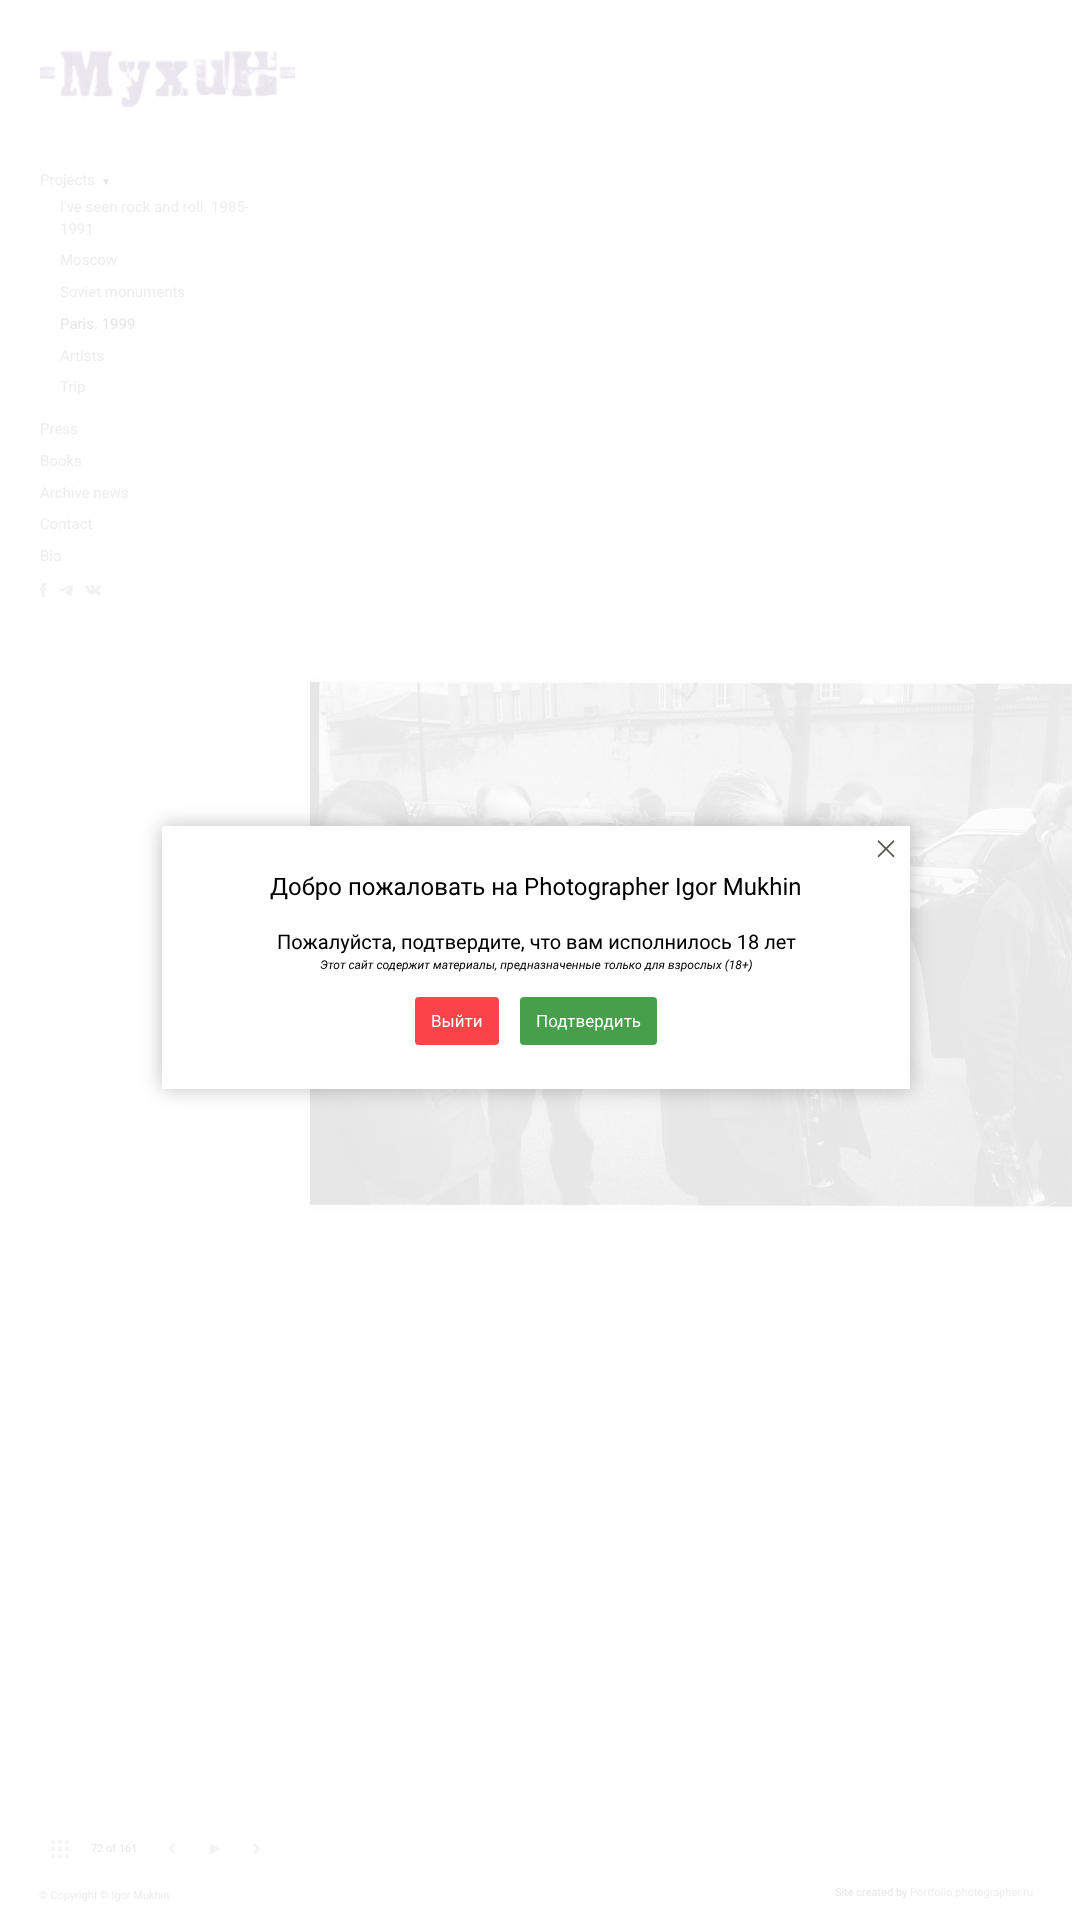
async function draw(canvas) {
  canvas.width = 1072
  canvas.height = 1915
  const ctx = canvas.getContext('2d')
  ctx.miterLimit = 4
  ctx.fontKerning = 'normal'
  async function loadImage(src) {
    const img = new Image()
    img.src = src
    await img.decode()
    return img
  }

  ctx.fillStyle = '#fff'
  ctx.fillRect(0, 0, 1072, 1915)
  ctx.drawImage(await loadImage('image0.png'), 40, 51, 255, 56)
  ctx.font = '15px Roboto'
  ctx.fillStyle = '#ededed'
  ctx.fillText('Projects', 40, 185)
  ctx.font = '10px Liberation Serif'
  ctx.fillStyle = '#e6e6e6'
  ctx.fillText('▼', 101, 185)
  ctx.font = '15px Roboto'
  ctx.fillStyle = '#ededed'
  ctx.fillText('I\'ve seen rоck and rоll. 1985-', 60, 212)
  ctx.fillText('1991', 60, 234)
  ctx.fillText('Mоscow', 60, 265)
  ctx.fillText('Soviet monuments', 60, 297)
  ctx.fillStyle = '#e6e6e6'
  ctx.fillText('Paris. 1999', 60, 329)
  ctx.fillStyle = '#ededed'
  ctx.fillText('Аrtists', 60, 361)
  ctx.fillText('Trip', 60, 392)
  ctx.fillText('Press', 40, 434)
  ctx.fillText('Books', 40, 466)
  ctx.fillText('Аrchive news', 40, 498)
  ctx.fillText('Contact', 40, 529)
  ctx.fillText('Bio', 40, 561)
  ctx.drawImage(await loadImage('image1.png'), 40, 583, 7, 14)
  ctx.drawImage(await loadImage('image2.png'), 59, 585, 14, 11)
  ctx.drawImage(await loadImage('image3.png'), 85, 585, 16, 10)
  ctx.drawImage(await loadImage('image4.png'), 51, 1840, 18, 18)
  ctx.font = '11px Roboto'
  ctx.fillStyle = '#e6e6e6'
  ctx.fillText('72 of 161', 91, 1852)
  ctx.drawImage(await loadImage('image5.png'), 168, 1843, 8, 12)
  ctx.fillStyle = '#f5f5f5'
  ctx.beginPath()
  ctx.moveTo(221, 1849)
  ctx.lineTo(210, 1855)
  ctx.lineTo(210, 1843)
  ctx.closePath()
  ctx.fill()
  ctx.drawImage(await loadImage('image6.png'), 253, 1843, 8, 12)
  ctx.drawImage(await loadImage('image7.png'), 310, 676, 762, 537)
  ctx.fillStyle = '#00000040'
  ctx.filter = 'blur(10px)'
  ctx.beginPath()
  ctx.rect(162, 826, 748, 263)
  ctx.fill()
  ctx.filter = 'none'
  ctx.fillStyle = '#fff'
  ctx.fillRect(162, 826, 748, 263)
  ctx.fillStyle = '#5d5651'
  ctx.beginPath()
  ctx.moveTo(893.5, 840)
  ctx.lineTo(894.5, 841.5)
  ctx.lineTo(878.5, 857.5)
  ctx.lineTo(877.5, 856)
  ctx.closePath()
  ctx.fill()
  ctx.beginPath()
  ctx.moveTo(877.5, 841.5)
  ctx.lineTo(878.5, 840)
  ctx.lineTo(894.5, 856)
  ctx.lineTo(893.5, 857.5)
  ctx.closePath()
  ctx.fill()
  ctx.font = '24px Roboto'
  ctx.fillStyle = '#000'
  ctx.fillText('Добро пожаловать на Photographer Igor Mukhin', 270, 895)
  ctx.font = '20px Roboto'
  ctx.fillText('Пожалуйста, подтвердите, что вам исполнилось 18 лет', 277, 949)
  ctx.font = 'italic 12px Roboto'
  ctx.fillText('Этот сайт содержит материалы, предназначенные только для взрослых (18+)', 320, 969)
  ctx.fillStyle = '#fb444a'
  ctx.beginPath()
  ctx.roundRect(415, 997, 84, 48, 4)
  ctx.fill()
  ctx.font = '17px Roboto'
  ctx.fillStyle = '#fff'
  ctx.fillText('Выйти', 431, 1027)
  ctx.fillStyle = '#479f4b'
  ctx.beginPath()
  ctx.roundRect(520, 997, 137, 48, 4)
  ctx.fill()
  ctx.fillStyle = '#fff'
  ctx.fillText('Подтвердить', 536, 1027)
  ctx.font = '11px Roboto'
  ctx.fillStyle = '#ededed'
  ctx.fillText('© Copyright © Igor Mukhin', 39, 1899)
  ctx.fillStyle = '#e6e6e6'
  ctx.fillText('Site created by', 835, 1896)
  ctx.fillStyle = '#ededed'
  ctx.fillText('Portfolio.photographer.ru', 910, 1896)
}

draw(document.querySelector('canvas'))
